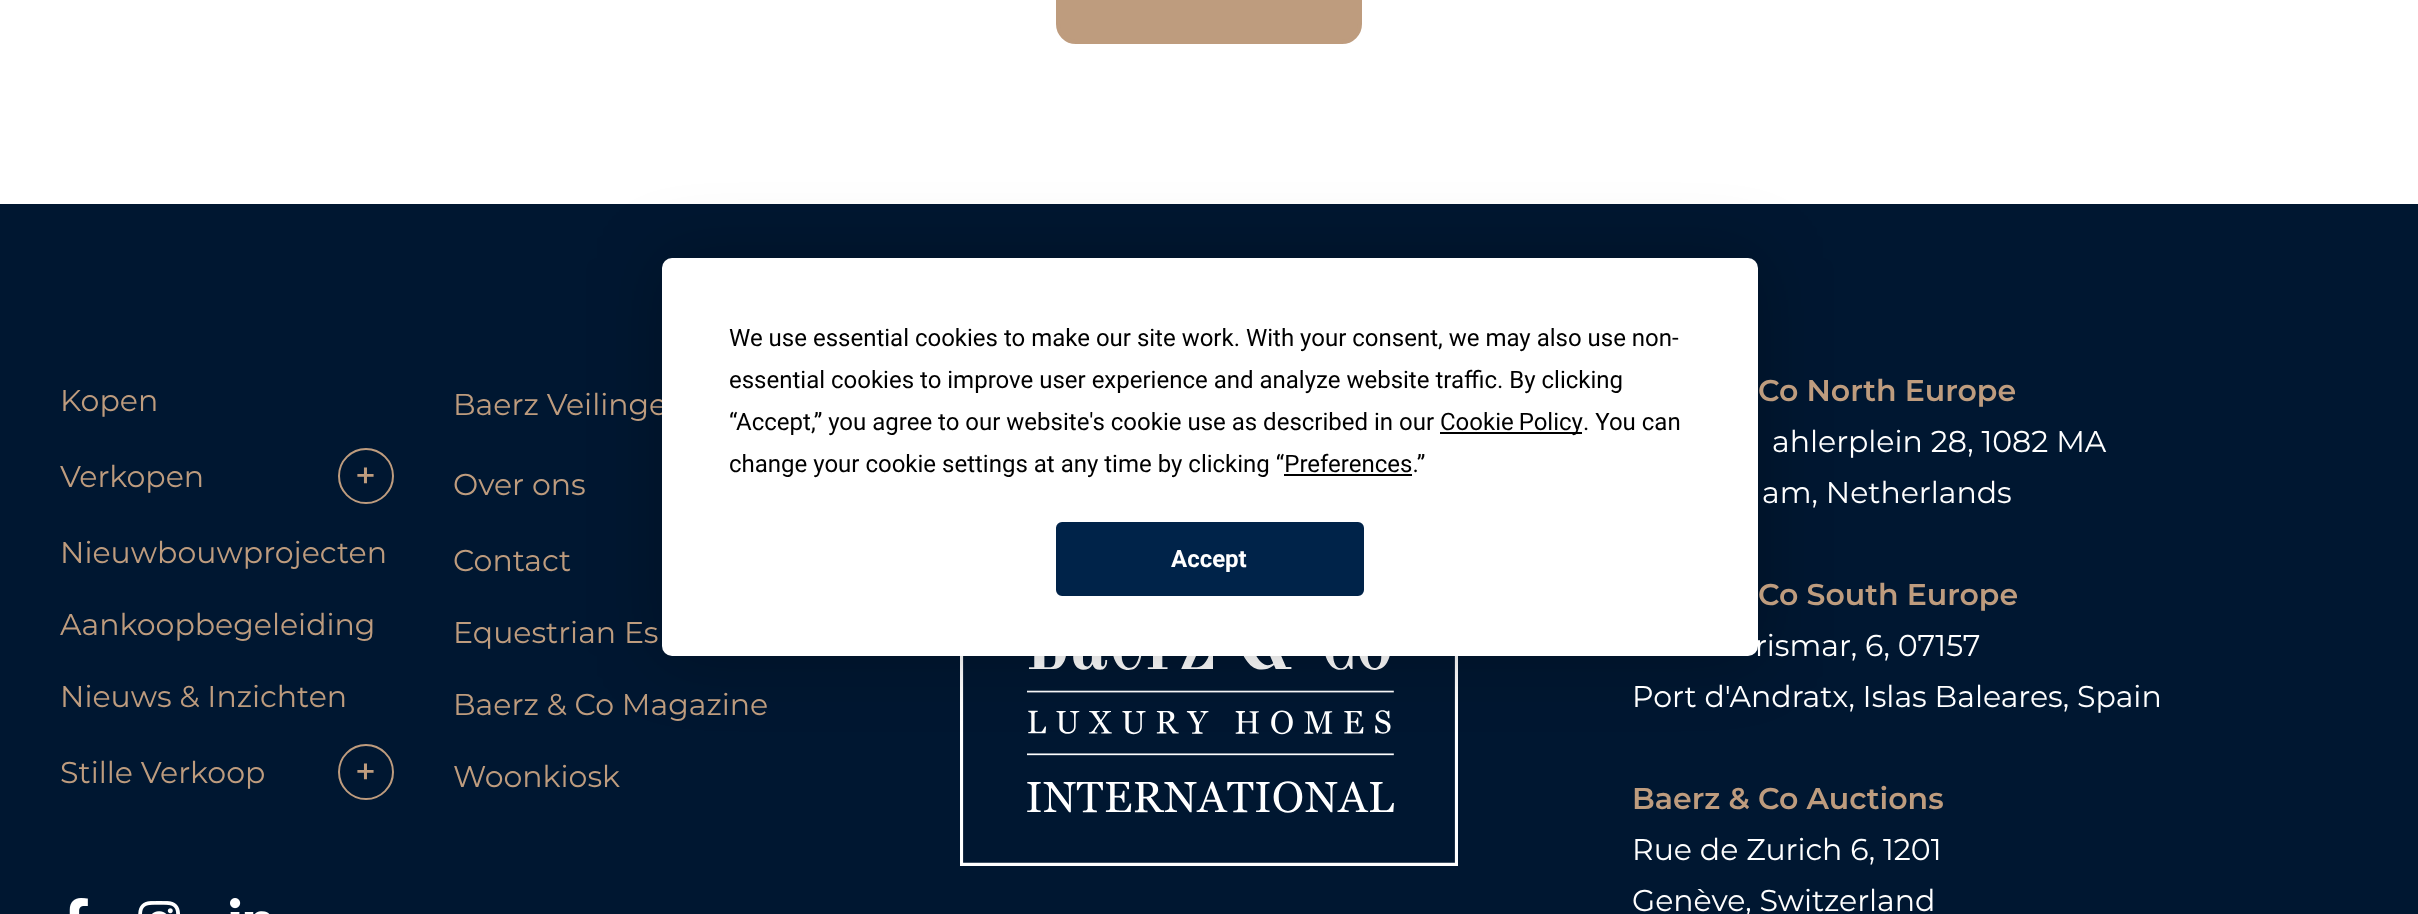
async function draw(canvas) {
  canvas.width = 2418
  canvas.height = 914
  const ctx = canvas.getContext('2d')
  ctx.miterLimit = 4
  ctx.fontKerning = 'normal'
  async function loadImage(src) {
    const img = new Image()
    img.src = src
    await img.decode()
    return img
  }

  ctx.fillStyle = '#fff'
  ctx.fillRect(0, 0, 2418, 914)
  ctx.fillStyle = '#be9c7e'
  ctx.beginPath()
  ctx.roundRect(1058, -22, 302, 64, 18)
  ctx.fill()
  ctx.strokeStyle = '#be9c7e'
  ctx.lineWidth = 4
  ctx.stroke()
  ctx.fillStyle = '#001731'
  ctx.fillRect(0, 204, 2418, 710)
  ctx.drawImage(await loadImage('image3.png'), 960, 656, 498, 210)
  ctx.fillStyle = '#00000040'
  ctx.filter = 'blur(35px)'
  ctx.beginPath()
  ctx.roundRect(662, 258, 1096, 398, 10)
  ctx.fill()
  ctx.filter = 'none'
  ctx.font = '30px Montserrat'
  ctx.fillStyle = '#be9c7e'
  ctx.fillText('Baerz Veilinge', 453, 415)
  ctx.fillStyle = '#fff'
  ctx.beginPath()
  ctx.roundRect(662, 258, 1096, 398, 10)
  ctx.fill()
  ctx.font = '24px Roboto'
  ctx.fillStyle = '#000'
  ctx.fillText('We use essential cookies to make our site work. With your consent, we may also use non-', 729, 346)
  ctx.fillText('essential cookies to improve user experience and analyze website traffic. By clicking', 729, 388)
  ctx.fillText('“Accept,” you agree to our website\'s cookie use as described in our', 729, 430)
  ctx.fillRect(1440, 432, 142, 2)
  ctx.wordSpacing = '-1px'
  ctx.fillText('Cookie Policy', 1440, 430)
  ctx.wordSpacing = '0px'
  ctx.fillText('. You can', 1583, 430)
  ctx.fillText('change your cookie settings at any time by clicking “Preferences.”', 729, 472)
  ctx.fillRect(1284, 474, 128, 2)
  ctx.fillStyle = '#002349'
  ctx.beginPath()
  ctx.roundRect(1057, 523, 306, 72, 5)
  ctx.fill()
  ctx.strokeStyle = '#002349'
  ctx.lineWidth = 2
  ctx.stroke()
  ctx.font = 'bold 24px Roboto'
  ctx.fillStyle = '#fff'
  ctx.fillText('Accept', 1171, 567)
  ctx.font = '30px Montserrat'
  ctx.fillStyle = '#be9c7e'
  ctx.fillText('Kopen', 60, 411)
  ctx.fillText('Verkopen', 60, 487)
  ctx.beginPath()
  ctx.arc(366, 476, 27, 0, 2 * Math.PI)
  ctx.strokeStyle = '#be9c7e'
  ctx.stroke()
  ctx.font = '500 36px Montserrat'
  ctx.fillText('+', 355, 488)
  ctx.font = '30px Montserrat'
  ctx.fillText('Nieuwbouwprojecten', 60, 563)
  ctx.fillText('Aankoopbegeleiding', 60, 635)
  ctx.fillText('Nieuws & Inzichten', 60, 707)
  ctx.fillText('Stille Verkoop', 60, 783)
  ctx.beginPath()
  ctx.arc(366, 772, 27, 0, 2 * Math.PI)
  ctx.stroke()
  ctx.font = '500 36px Montserrat'
  ctx.fillText('+', 355, 784)
  ctx.font = '30px Montserrat'
  ctx.fillText('Over ons', 453, 495)
  ctx.fillText('Contact', 453, 571)
  ctx.fillText('Equestrian Es', 453, 643)
  ctx.fillText('Baerz & Co Magazine', 453, 715)
  ctx.fillText('Woonkiosk', 453, 787)
  ctx.drawImage(await loadImage('image0.png'), 69, 898, 19, 16)
  ctx.drawImage(await loadImage('image1.png'), 138, 901, 42, 13)
  ctx.drawImage(await loadImage('image2.png'), 230, 898, 40, 16)
  ctx.font = '600 30px Montserrat'
  ctx.fillText('Co North Europe', 1758, 401)
  ctx.font = '30px Montserrat'
  ctx.fillStyle = '#fff'
  ctx.fillText('ahlerplein 28, 1082 MA', 1772, 452)
  ctx.fillText('am, Netherlands', 1762, 503)
  ctx.font = '600 30px Montserrat'
  ctx.fillStyle = '#be9c7e'
  ctx.fillText('Co South Europe', 1758, 605)
  ctx.font = '30px Montserrat'
  ctx.fillStyle = '#fff'
  ctx.fillText('rismar, 6, 07157', 1755, 656)
  ctx.fillText('Port d\'Andratx, Islas Baleares, Spain', 1632, 707)
  ctx.font = '600 30px Montserrat'
  ctx.fillStyle = '#be9c7e'
  ctx.fillText('Baerz & Co Auctions', 1632, 809)
  ctx.font = '30px Montserrat'
  ctx.fillStyle = '#fff'
  ctx.fillText('Rue de Zurich 6, 1201', 1632, 860)
  ctx.fillText('Genève, Switzerland', 1632, 911)
}

draw(document.querySelector('canvas'))
